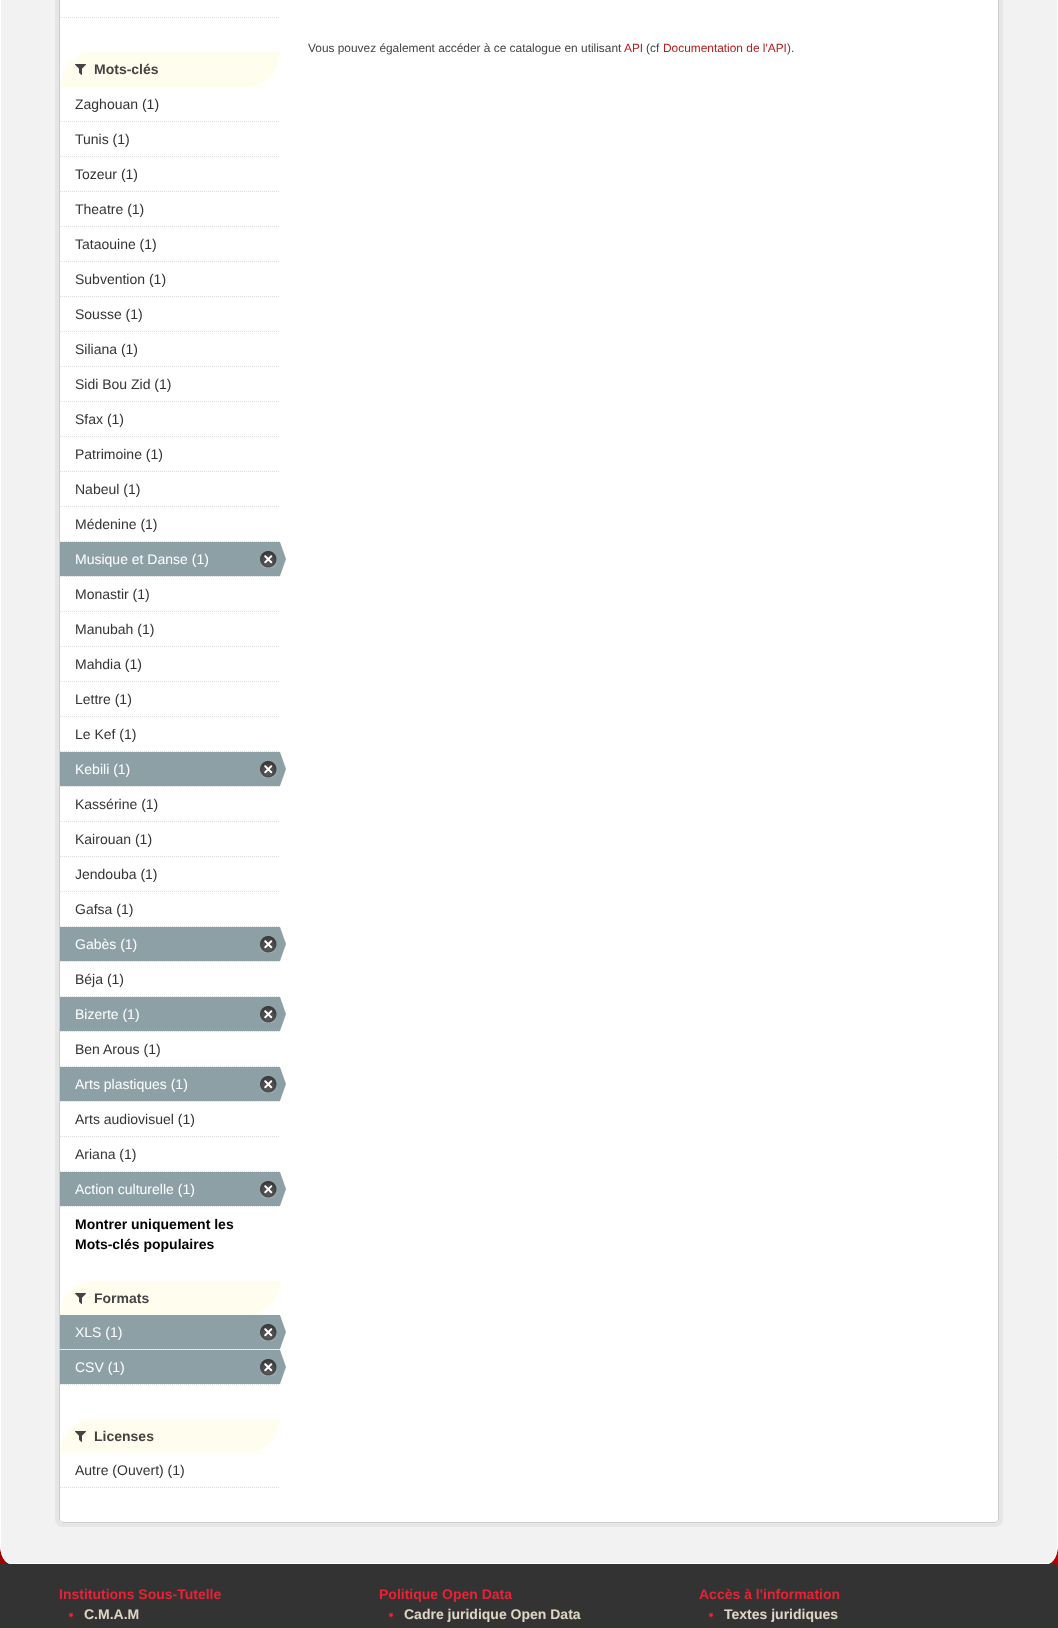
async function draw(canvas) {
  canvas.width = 1058
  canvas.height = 1628
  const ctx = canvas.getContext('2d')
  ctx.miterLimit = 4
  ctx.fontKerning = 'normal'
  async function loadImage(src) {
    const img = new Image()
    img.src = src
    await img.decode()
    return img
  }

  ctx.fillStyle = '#fff'
  ctx.fillRect(0, 0, 1058, 1628)
  ctx.drawImage(await loadImage('image0.png'), 0, 1544, 1058, 25)
  ctx.fillStyle = '#f2f2f2'
  ctx.beginPath()
  ctx.moveTo(11, -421)
  ctx.lineTo(1047, -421)
  ctx.bezierCurveTo(1053, -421, 1058, -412, 1058, -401)
  ctx.lineTo(1058, 1544)
  ctx.bezierCurveTo(1058, 1555, 1053, 1564, 1047, 1564)
  ctx.lineTo(11, 1564)
  ctx.bezierCurveTo(5, 1564, 0, 1555, 0, 1544)
  ctx.lineTo(0, -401)
  ctx.bezierCurveTo(0, -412, 5, -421, 11, -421)
  ctx.closePath()
  ctx.fill()
  ctx.beginPath()
  ctx.moveTo(10.5, -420.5)
  ctx.lineTo(1047.5, -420.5)
  ctx.bezierCurveTo(1053, -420.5, 1057.5, -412, 1057.5, -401)
  ctx.lineTo(1057.5, 1544)
  ctx.bezierCurveTo(1057.5, 1555, 1053, 1563.5, 1047.5, 1563.5)
  ctx.lineTo(10.5, 1563.5)
  ctx.bezierCurveTo(5, 1563.5, 0.5, 1555, 0.5, 1544)
  ctx.lineTo(0.5, -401)
  ctx.bezierCurveTo(0.5, -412, 5, -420.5, 10.5, -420.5)
  ctx.closePath()
  ctx.strokeStyle = '#fff'
  ctx.stroke()
  ctx.beginPath()
  ctx.roundRect(57, -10, 944, 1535, 6)
  ctx.strokeStyle = '#e6e6e6'
  ctx.lineWidth = 4
  ctx.stroke()
  ctx.fillStyle = '#fff'
  ctx.beginPath()
  ctx.roundRect(59, -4, 940, 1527, 4)
  ctx.fill()
  ctx.fillRect(60, 1522, 2, 1)
  ctx.beginPath()
  ctx.roundRect(59.5, -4.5, 939, 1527, 3.5)
  ctx.strokeStyle = '#ccc'
  ctx.lineWidth = 1
  ctx.stroke()
  ctx.font = '11.9px Liberation Sans'
  ctx.fillStyle = '#444'
  ctx.fillText('Vous pouvez également accéder à ce catalogue en utilisant', 308, 52)
  ctx.fillStyle = '#b41c1b'
  ctx.fillText('API', 624, 52)
  ctx.fillStyle = '#444'
  ctx.fillText('(cf', 646, 52)
  ctx.fillStyle = '#b41c1b'
  ctx.fillText('Documentation de l\'API', 663, 52)
  ctx.fillStyle = '#444'
  ctx.fillText(').', 787, 52)
  ctx.beginPath()
  ctx.moveTo(60, 17.5)
  ctx.lineTo(280, 17.5)
  ctx.strokeStyle = '#ddd'
  ctx.setLineDash([1, 1])
  ctx.stroke()
  ctx.fillStyle = '#fffeee'
  ctx.beginPath()
  ctx.roundRect(60, 52, 220, 35, [35, 0, 35, 0])
  ctx.fill()
  ctx.fillRect(78, 52, 14, 1)
  ctx.fillRect(248, 86, 15, 1)
  ctx.drawImage(await loadImage('image1.png'), 75, 64, 11, 11)
  ctx.font = 'bold 14px Liberation Sans'
  ctx.fillStyle = '#444'
  ctx.fillText('Mots-clés', 94, 74)
  ctx.beginPath()
  ctx.moveTo(60, 121.5)
  ctx.lineTo(280, 121.5)
  ctx.stroke()
  ctx.font = '14px Liberation Sans'
  ctx.fillStyle = '#333'
  ctx.fillText('Zaghouan (1)', 75, 109)
  ctx.beginPath()
  ctx.moveTo(60, 156.5)
  ctx.lineTo(280, 156.5)
  ctx.stroke()
  ctx.fillText('Tunis (1)', 75, 144)
  ctx.beginPath()
  ctx.moveTo(60, 191.5)
  ctx.lineTo(280, 191.5)
  ctx.stroke()
  ctx.fillText('Tozeur (1)', 75, 179)
  ctx.beginPath()
  ctx.moveTo(60, 226.5)
  ctx.lineTo(280, 226.5)
  ctx.stroke()
  ctx.fillText('Theatre (1)', 75, 214)
  ctx.beginPath()
  ctx.moveTo(60, 261.5)
  ctx.lineTo(280, 261.5)
  ctx.stroke()
  ctx.fillText('Tataouine (1)', 75, 249)
  ctx.beginPath()
  ctx.moveTo(60, 296.5)
  ctx.lineTo(280, 296.5)
  ctx.stroke()
  ctx.fillText('Subvention (1)', 75, 284)
  ctx.beginPath()
  ctx.moveTo(60, 331.5)
  ctx.lineTo(280, 331.5)
  ctx.stroke()
  ctx.fillText('Sousse (1)', 75, 319)
  ctx.beginPath()
  ctx.moveTo(60, 366.5)
  ctx.lineTo(280, 366.5)
  ctx.stroke()
  ctx.fillText('Siliana (1)', 75, 354)
  ctx.beginPath()
  ctx.moveTo(60, 401.5)
  ctx.lineTo(280, 401.5)
  ctx.stroke()
  ctx.fillText('Sidi Bou Zid (1)', 75, 389)
  ctx.beginPath()
  ctx.moveTo(60, 436.5)
  ctx.lineTo(280, 436.5)
  ctx.stroke()
  ctx.fillText('Sfax (1)', 75, 424)
  ctx.beginPath()
  ctx.moveTo(60, 471.5)
  ctx.lineTo(280, 471.5)
  ctx.stroke()
  ctx.fillText('Patrimoine (1)', 75, 459)
  ctx.beginPath()
  ctx.moveTo(60, 506.5)
  ctx.lineTo(280, 506.5)
  ctx.stroke()
  ctx.fillText('Nabeul (1)', 75, 494)
  ctx.beginPath()
  ctx.moveTo(60, 541.5)
  ctx.lineTo(280, 541.5)
  ctx.stroke()
  ctx.fillText('Médenine (1)', 75, 529)
  ctx.fillStyle = '#f6f6f6'
  ctx.fillRect(61, 576, 219, 1)
  ctx.beginPath()
  ctx.moveTo(60, 576.5)
  ctx.lineTo(280, 576.5)
  ctx.stroke()
  ctx.fillStyle = '#8ca0a6'
  ctx.fillRect(60, 542, 220, 34)
  ctx.fillStyle = '#fff'
  ctx.fillText('Musique et Danse (1)', 75, 564)
  ctx.drawImage(await loadImage('image2.png'), 260, 551, 17, 17)
  ctx.drawImage(await loadImage('image3.png'), 280, 542, 6, 34)
  ctx.beginPath()
  ctx.moveTo(60, 611.5)
  ctx.lineTo(280, 611.5)
  ctx.stroke()
  ctx.fillStyle = '#333'
  ctx.fillText('Monastir (1)', 75, 599)
  ctx.beginPath()
  ctx.moveTo(60, 646.5)
  ctx.lineTo(280, 646.5)
  ctx.stroke()
  ctx.fillText('Manubah (1)', 75, 634)
  ctx.beginPath()
  ctx.moveTo(60, 681.5)
  ctx.lineTo(280, 681.5)
  ctx.stroke()
  ctx.fillText('Mahdia (1)', 75, 669)
  ctx.beginPath()
  ctx.moveTo(60, 716.5)
  ctx.lineTo(280, 716.5)
  ctx.stroke()
  ctx.fillText('Lettre (1)', 75, 704)
  ctx.beginPath()
  ctx.moveTo(60, 751.5)
  ctx.lineTo(280, 751.5)
  ctx.stroke()
  ctx.fillText('Le Kef (1)', 75, 739)
  ctx.fillStyle = '#f6f6f6'
  ctx.fillRect(61, 786, 219, 1)
  ctx.beginPath()
  ctx.moveTo(60, 786.5)
  ctx.lineTo(280, 786.5)
  ctx.stroke()
  ctx.fillStyle = '#8ca0a6'
  ctx.fillRect(60, 752, 220, 34)
  ctx.fillStyle = '#fff'
  ctx.fillText('Kebili (1)', 75, 774)
  ctx.drawImage(await loadImage('image2.png'), 260, 761, 17, 17)
  ctx.drawImage(await loadImage('image3.png'), 280, 752, 6, 34)
  ctx.beginPath()
  ctx.moveTo(60, 821.5)
  ctx.lineTo(280, 821.5)
  ctx.stroke()
  ctx.fillStyle = '#333'
  ctx.fillText('Kassérine (1)', 75, 809)
  ctx.beginPath()
  ctx.moveTo(60, 856.5)
  ctx.lineTo(280, 856.5)
  ctx.stroke()
  ctx.fillText('Kairouan (1)', 75, 844)
  ctx.beginPath()
  ctx.moveTo(60, 891.5)
  ctx.lineTo(280, 891.5)
  ctx.stroke()
  ctx.fillText('Jendouba (1)', 75, 879)
  ctx.beginPath()
  ctx.moveTo(60, 926.5)
  ctx.lineTo(280, 926.5)
  ctx.stroke()
  ctx.fillText('Gafsa (1)', 75, 914)
  ctx.fillStyle = '#f6f6f6'
  ctx.fillRect(61, 961, 219, 1)
  ctx.beginPath()
  ctx.moveTo(60, 961.5)
  ctx.lineTo(280, 961.5)
  ctx.stroke()
  ctx.fillStyle = '#8ca0a6'
  ctx.fillRect(60, 927, 220, 34)
  ctx.fillStyle = '#fff'
  ctx.fillText('Gabès (1)', 75, 949)
  ctx.drawImage(await loadImage('image2.png'), 260, 936, 17, 17)
  ctx.drawImage(await loadImage('image3.png'), 280, 927, 6, 34)
  ctx.beginPath()
  ctx.moveTo(60, 996.5)
  ctx.lineTo(280, 996.5)
  ctx.stroke()
  ctx.fillStyle = '#333'
  ctx.fillText('Béja (1)', 75, 984)
  ctx.fillStyle = '#f6f6f6'
  ctx.fillRect(61, 1031, 219, 1)
  ctx.beginPath()
  ctx.moveTo(60, 1031.5)
  ctx.lineTo(280, 1031.5)
  ctx.stroke()
  ctx.fillStyle = '#8ca0a6'
  ctx.fillRect(60, 997, 220, 34)
  ctx.fillStyle = '#fff'
  ctx.fillText('Bizerte (1)', 75, 1019)
  ctx.drawImage(await loadImage('image2.png'), 260, 1006, 17, 17)
  ctx.drawImage(await loadImage('image3.png'), 280, 997, 6, 34)
  ctx.beginPath()
  ctx.moveTo(60, 1066.5)
  ctx.lineTo(280, 1066.5)
  ctx.stroke()
  ctx.fillStyle = '#333'
  ctx.fillText('Ben Arous (1)', 75, 1054)
  ctx.fillStyle = '#f6f6f6'
  ctx.fillRect(61, 1101, 219, 1)
  ctx.beginPath()
  ctx.moveTo(60, 1101.5)
  ctx.lineTo(280, 1101.5)
  ctx.stroke()
  ctx.fillStyle = '#8ca0a6'
  ctx.fillRect(60, 1067, 220, 34)
  ctx.fillStyle = '#fff'
  ctx.fillText('Arts plastiques (1)', 75, 1089)
  ctx.drawImage(await loadImage('image2.png'), 260, 1076, 17, 17)
  ctx.drawImage(await loadImage('image3.png'), 280, 1067, 6, 34)
  ctx.beginPath()
  ctx.moveTo(60, 1136.5)
  ctx.lineTo(280, 1136.5)
  ctx.stroke()
  ctx.fillStyle = '#333'
  ctx.fillText('Arts audiovisuel (1)', 75, 1124)
  ctx.beginPath()
  ctx.moveTo(60, 1171.5)
  ctx.lineTo(280, 1171.5)
  ctx.stroke()
  ctx.fillText('Ariana (1)', 75, 1159)
  ctx.fillStyle = '#8ca0a6'
  ctx.fillRect(60, 1172, 220, 34)
  ctx.fillStyle = '#fff'
  ctx.fillText('Action culturelle (1)', 75, 1194)
  ctx.drawImage(await loadImage('image2.png'), 260, 1181, 17, 17)
  ctx.drawImage(await loadImage('image3.png'), 280, 1172, 6, 34)
  ctx.beginPath()
  ctx.moveTo(60, 1206.5)
  ctx.lineTo(280, 1206.5)
  ctx.stroke()
  ctx.font = 'bold 14px Liberation Sans'
  ctx.fillStyle = '#000'
  ctx.fillText('Montrer uniquement les', 75, 1229)
  ctx.fillText('Mots-clés populaires', 75, 1249)
  ctx.fillStyle = '#fffeee'
  ctx.beginPath()
  ctx.roundRect(60, 1281, 220, 34, [34, 0, 34, 0])
  ctx.fill()
  ctx.fillRect(77, 1281, 14, 1)
  ctx.fillRect(249, 1314, 14, 1)
  ctx.drawImage(await loadImage('image1.png'), 75, 1293, 11, 11)
  ctx.fillStyle = '#444'
  ctx.fillText('Formats', 94, 1303)
  ctx.fillStyle = '#f6f6f6'
  ctx.fillRect(61, 1349, 219, 1)
  ctx.beginPath()
  ctx.moveTo(60, 1349.5)
  ctx.lineTo(280, 1349.5)
  ctx.stroke()
  ctx.fillStyle = '#8ca0a6'
  ctx.fillRect(60, 1315, 220, 34)
  ctx.font = '14px Liberation Sans'
  ctx.fillStyle = '#fff'
  ctx.fillText('XLS (1)', 75, 1337)
  ctx.drawImage(await loadImage('image2.png'), 260, 1324, 17, 17)
  ctx.drawImage(await loadImage('image3.png'), 280, 1315, 6, 34)
  ctx.fillStyle = '#8ca0a6'
  ctx.fillRect(60, 1350, 220, 34)
  ctx.fillStyle = '#fff'
  ctx.fillText('CSV (1)', 75, 1372)
  ctx.drawImage(await loadImage('image2.png'), 260, 1359, 17, 17)
  ctx.drawImage(await loadImage('image3.png'), 280, 1350, 6, 34)
  ctx.beginPath()
  ctx.moveTo(60, 1384.5)
  ctx.lineTo(280, 1384.5)
  ctx.stroke()
  ctx.fillStyle = '#fffeee'
  ctx.beginPath()
  ctx.roundRect(60, 1419, 220, 34, [34, 0, 34, 0])
  ctx.fill()
  ctx.fillRect(77, 1419, 14, 1)
  ctx.fillRect(249, 1452, 14, 1)
  ctx.drawImage(await loadImage('image1.png'), 75, 1431, 11, 11)
  ctx.font = 'bold 14px Liberation Sans'
  ctx.fillStyle = '#444'
  ctx.fillText('Licenses', 94, 1441)
  ctx.font = '14px Liberation Sans'
  ctx.fillStyle = '#333'
  ctx.fillText('Autre (Ouvert) (1)', 75, 1475)
  ctx.beginPath()
  ctx.moveTo(60, 1487.5)
  ctx.lineTo(280, 1487.5)
  ctx.stroke()
  ctx.beginPath()
  ctx.moveTo(0, 1564)
  ctx.lineTo(1053, 1564)
  ctx.bezierCurveTo(1056, 1564, 1058, 1566, 1058, 1569)
  ctx.lineTo(1058, 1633)
  ctx.lineTo(5, 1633)
  ctx.bezierCurveTo(2, 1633, 0, 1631, 0, 1628)
  ctx.closePath()
  ctx.fill()
  ctx.font = 'bold 14px Liberation Sans'
  ctx.fillStyle = '#eb2135'
  ctx.fillText('Institutions Sous-Tutelle', 59, 1599)
  ctx.beginPath()
  ctx.arc(71, 1615, 2, 0, 2 * Math.PI)
  ctx.fill()
  ctx.fillStyle = '#e0d6c7'
  ctx.fillText('C.M.A.M', 84, 1619)
  ctx.fillStyle = '#eb2135'
  ctx.fillText('Politique Open Data', 379, 1599)
  ctx.beginPath()
  ctx.arc(391, 1615, 2, 0, 2 * Math.PI)
  ctx.fill()
  ctx.fillStyle = '#e0d6c7'
  ctx.fillText('Cadre juridique Open Data', 404, 1619)
  ctx.fillStyle = '#eb2135'
  ctx.fillText('Accès à l\'information', 699, 1599)
  ctx.beginPath()
  ctx.arc(711, 1615, 2, 0, 2 * Math.PI)
  ctx.fill()
  ctx.fillStyle = '#e0d6c7'
  ctx.fillText('Textes juridiques', 724, 1619)
}

draw(document.querySelector('canvas'))
